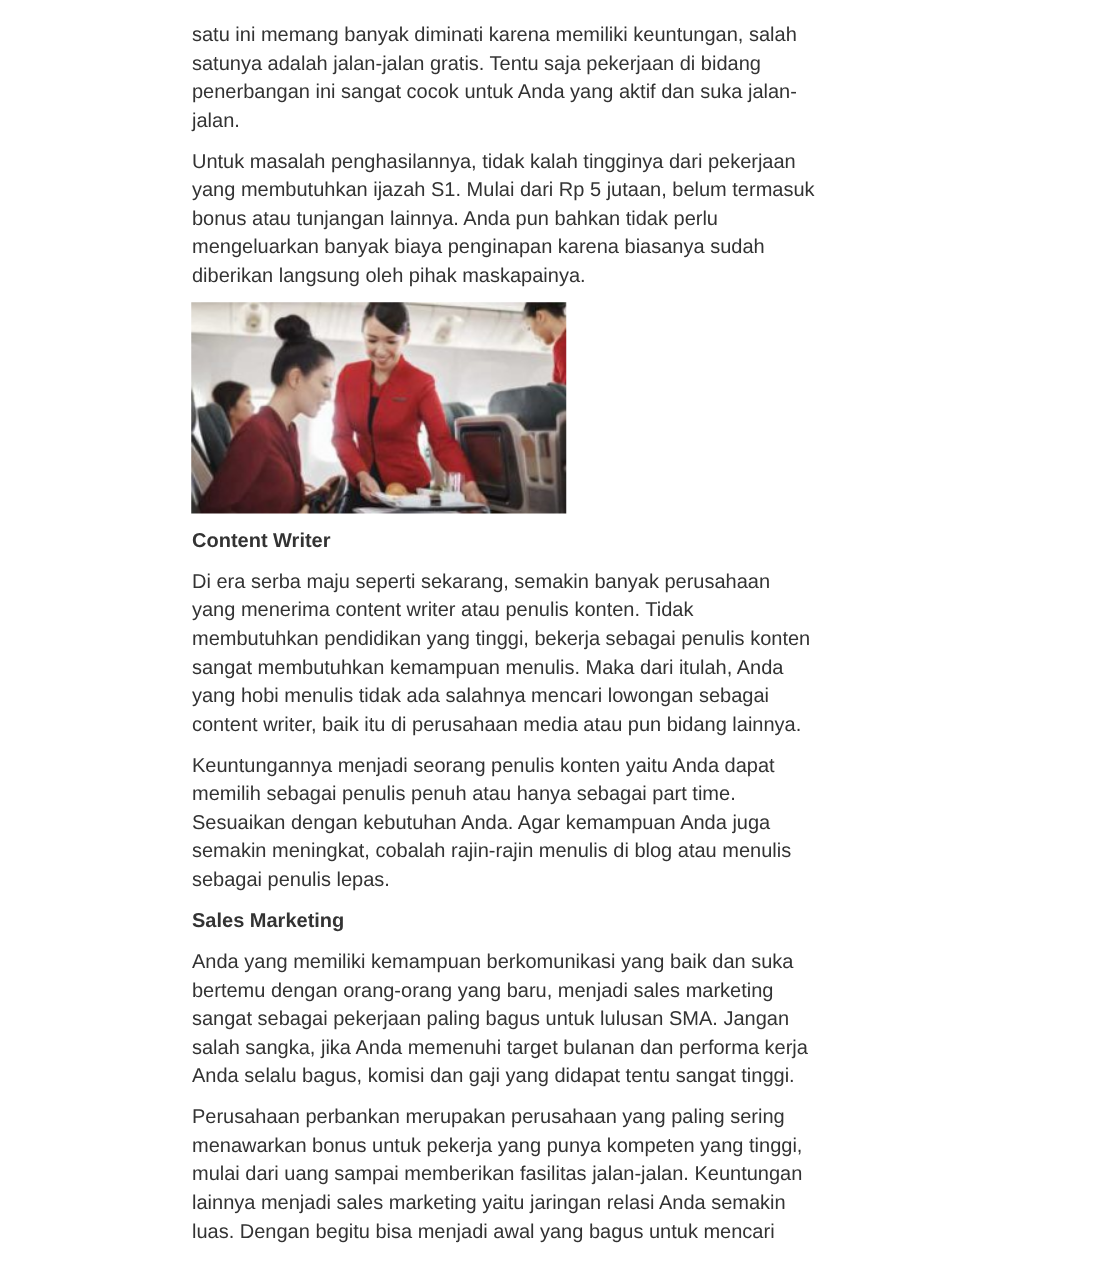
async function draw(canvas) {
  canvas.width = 1107
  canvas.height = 1283
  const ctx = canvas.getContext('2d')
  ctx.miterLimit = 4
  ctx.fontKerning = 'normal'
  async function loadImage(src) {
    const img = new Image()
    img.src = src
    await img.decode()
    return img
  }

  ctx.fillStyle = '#fff'
  ctx.fillRect(0, 0, 1107, 1283)
  ctx.font = '20px Liberation Sans'
  ctx.fillStyle = '#333'
  ctx.fillText('satu ini memang banyak diminati karena memiliki keuntungan, salah', 192, 41)
  ctx.fillText('satunya adalah jalan-jalan gratis. Tentu saja pekerjaan di bidang', 192, 70)
  ctx.fillText('penerbangan ini sangat cocok untuk Anda yang aktif dan suka jalan-', 192, 98)
  ctx.fillText('jalan.', 192, 127)
  ctx.fillText('Untuk masalah penghasilannya, tidak kalah tingginya dari pekerjaan', 192, 168)
  ctx.fillText('yang membutuhkan ijazah S1. Mulai dari Rp 5 jutaan, belum termasuk', 192, 196)
  ctx.fillText('bonus atau tunjangan lainnya. Anda pun bahkan tidak perlu', 192, 225)
  ctx.fillText('mengeluarkan banyak biaya penginapan karena biasanya sudah', 192, 253)
  ctx.fillText('diberikan langsung oleh pihak maskapainya.', 192, 282)
  ctx.drawImage(await loadImage('image0.png'), 191, 302, 376, 212)
  ctx.font = 'bold 20px Liberation Sans'
  ctx.fillText('Content Writer', 192, 547)
  ctx.font = '20px Liberation Sans'
  ctx.fillText('Di era serba maju seperti sekarang, semakin banyak perusahaan', 192, 588)
  ctx.fillText('yang menerima content writer atau penulis konten. Tidak', 192, 616)
  ctx.fillText('membutuhkan pendidikan yang tinggi, bekerja sebagai penulis konten', 192, 645)
  ctx.fillText('sangat membutuhkan kemampuan menulis. Maka dari itulah, Anda', 192, 674)
  ctx.fillText('yang hobi menulis tidak ada salahnya mencari lowongan sebagai', 192, 702)
  ctx.fillText('content writer, baik itu di perusahaan media atau pun bidang lainnya.', 192, 731)
  ctx.fillText('Keuntungannya menjadi seorang penulis konten yaitu Anda dapat', 192, 772)
  ctx.fillText('memilih sebagai penulis penuh atau hanya sebagai part time.', 192, 800)
  ctx.fillText('Sesuaikan dengan kebutuhan Anda. Agar kemampuan Anda juga', 192, 829)
  ctx.fillText('semakin meningkat, cobalah rajin-rajin menulis di blog atau menulis', 192, 857)
  ctx.fillText('sebagai penulis lepas.', 192, 886)
  ctx.font = 'bold 20px Liberation Sans'
  ctx.fillText('Sales Marketing', 192, 927)
  ctx.font = '20px Liberation Sans'
  ctx.fillText('Anda yang memiliki kemampuan berkomunikasi yang baik dan suka', 192, 968)
  ctx.fillText('bertemu dengan orang-orang yang baru, menjadi sales marketing', 192, 997)
  ctx.fillText('sangat sebagai pekerjaan paling bagus untuk lulusan SMA. Jangan', 192, 1025)
  ctx.fillText('salah sangka, jika Anda memenuhi target bulanan dan performa kerja', 192, 1054)
  ctx.fillText('Anda selalu bagus, komisi dan gaji yang didapat tentu sangat tinggi.', 192, 1082)
  ctx.fillText('Perusahaan perbankan merupakan perusahaan yang paling sering', 192, 1123)
  ctx.fillText('menawarkan bonus untuk pekerja yang punya kompeten yang tinggi,', 192, 1152)
  ctx.fillText('mulai dari uang sampai memberikan fasilitas jalan-jalan. Keuntungan', 192, 1180)
  ctx.fillText('lainnya menjadi sales marketing yaitu jaringan relasi Anda semakin', 192, 1209)
  ctx.fillText('luas. Dengan begitu bisa menjadi awal yang bagus untuk mencari', 192, 1238)
}

draw(document.querySelector('canvas'))
